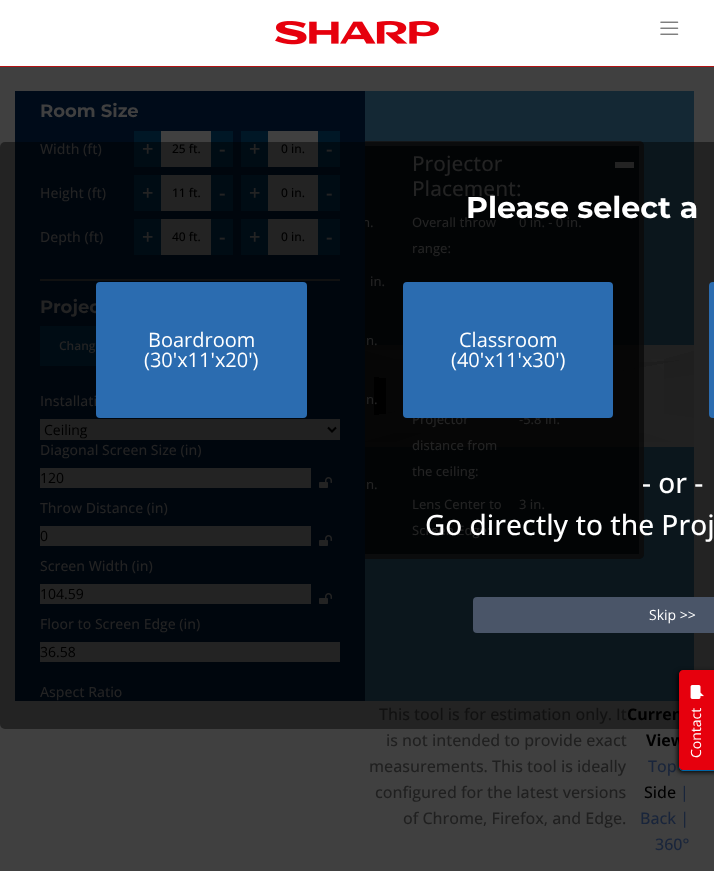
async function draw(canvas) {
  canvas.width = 714
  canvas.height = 871
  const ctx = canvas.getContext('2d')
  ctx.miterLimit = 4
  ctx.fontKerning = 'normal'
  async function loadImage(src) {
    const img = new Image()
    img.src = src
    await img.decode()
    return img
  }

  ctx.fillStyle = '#404040'
  ctx.fillRect(0, 0, 714, 871)
  ctx.fillStyle = '#b21213'
  ctx.fillRect(0, 66, 714, 1)
  ctx.fillStyle = '#fff'
  ctx.fillRect(0, 0, 714, 66)
  ctx.drawImage(await loadImage('image0.png'), 275, 21, 164, 24)
  ctx.drawImage(await loadImage('image1.png'), 660, 21, 19, 14)
  ctx.fillStyle = '#000b19'
  ctx.fillRect(15, 91, 350, 610)
  ctx.font = 'bold 18px Montserrat'
  ctx.fillStyle = '#404040'
  ctx.fillText('Room Size', 40, 117)
  ctx.font = '500 14px Open Sans'
  ctx.fillText('Width (ft)', 40, 154)
  ctx.fillStyle = '#001726'
  ctx.fillRect(134, 131, 27, 36)
  ctx.font = '600 20px Open Sans'
  ctx.fillStyle = '#404040'
  ctx.fillText('+', 142, 156)
  ctx.fillRect(161, 131, 50, 36)
  ctx.font = '500 12px Open Sans'
  ctx.fillStyle = '#000'
  ctx.fillText('25 ft.', 172, 153)
  ctx.fillStyle = '#001726'
  ctx.fillRect(211, 131, 22, 36)
  ctx.font = '600 20px Open Sans'
  ctx.fillStyle = '#404040'
  ctx.fillText('-', 219, 156)
  ctx.fillStyle = '#001726'
  ctx.fillRect(241, 131, 27, 36)
  ctx.fillStyle = '#404040'
  ctx.fillText('+', 249, 156)
  ctx.fillRect(268, 131, 50, 36)
  ctx.font = '500 12px Open Sans'
  ctx.fillStyle = '#000'
  ctx.fillText('0 in.', 281, 153)
  ctx.fillStyle = '#001726'
  ctx.fillRect(318, 131, 22, 36)
  ctx.font = '600 20px Open Sans'
  ctx.fillStyle = '#404040'
  ctx.fillText('-', 326, 156)
  ctx.font = '500 14px Open Sans'
  ctx.fillText('Height (ft)', 40, 198)
  ctx.fillStyle = '#001726'
  ctx.fillRect(134, 175, 27, 36)
  ctx.font = '600 20px Open Sans'
  ctx.fillStyle = '#404040'
  ctx.fillText('+', 142, 200)
  ctx.fillRect(161, 175, 50, 36)
  ctx.font = '500 12px Open Sans'
  ctx.fillStyle = '#000'
  ctx.fillText('11 ft.', 172, 197)
  ctx.fillStyle = '#001726'
  ctx.fillRect(211, 175, 22, 36)
  ctx.font = '600 20px Open Sans'
  ctx.fillStyle = '#404040'
  ctx.fillText('-', 219, 200)
  ctx.fillStyle = '#001726'
  ctx.fillRect(241, 175, 27, 36)
  ctx.fillStyle = '#404040'
  ctx.fillText('+', 249, 200)
  ctx.fillRect(268, 175, 50, 36)
  ctx.font = '500 12px Open Sans'
  ctx.fillStyle = '#000'
  ctx.fillText('0 in.', 281, 197)
  ctx.fillStyle = '#001726'
  ctx.fillRect(318, 175, 22, 36)
  ctx.font = '600 20px Open Sans'
  ctx.fillStyle = '#404040'
  ctx.fillText('-', 326, 200)
  ctx.font = '500 14px Open Sans'
  ctx.fillText('Depth (ft)', 40, 242)
  ctx.fillStyle = '#001726'
  ctx.fillRect(134, 219, 27, 36)
  ctx.font = '600 20px Open Sans'
  ctx.fillStyle = '#404040'
  ctx.fillText('+', 142, 244)
  ctx.fillRect(161, 219, 50, 36)
  ctx.font = '500 12px Open Sans'
  ctx.fillStyle = '#000'
  ctx.fillText('40 ft.', 172, 241)
  ctx.fillStyle = '#001726'
  ctx.fillRect(211, 219, 22, 36)
  ctx.font = '600 20px Open Sans'
  ctx.fillStyle = '#404040'
  ctx.fillText('-', 219, 244)
  ctx.fillStyle = '#001726'
  ctx.fillRect(241, 219, 27, 36)
  ctx.fillStyle = '#404040'
  ctx.fillText('+', 249, 244)
  ctx.fillRect(268, 219, 50, 36)
  ctx.font = '500 12px Open Sans'
  ctx.fillStyle = '#000'
  ctx.fillText('0 in.', 281, 241)
  ctx.fillStyle = '#001726'
  ctx.fillRect(318, 219, 22, 36)
  ctx.font = '600 20px Open Sans'
  ctx.fillStyle = '#404040'
  ctx.fillText('-', 326, 244)
  ctx.fillStyle = '#202020'
  ctx.fillRect(40, 279, 300, 2)
  ctx.font = 'bold 18px Montserrat'
  ctx.fillStyle = '#404040'
  ctx.fillText('Projec', 40, 313)
  ctx.fillStyle = '#001726'
  ctx.fillRect(40, 326, 56, 40)
  ctx.font = '600 12px Open Sans'
  ctx.fillStyle = '#404040'
  ctx.fillText('Chang', 59, 350)
  ctx.font = '500 14px Open Sans'
  ctx.fillText('Installati', 40, 406)
  ctx.fillStyle = '#3c3c3c'
  ctx.fillRect(40, 419, 300, 21)
  ctx.beginPath()
  ctx.moveTo(328, 427.5)
  ctx.lineTo(332, 431.5)
  ctx.lineTo(336, 427.5)
  ctx.strokeStyle = '#000'
  ctx.lineWidth = 2
  ctx.stroke()
  ctx.font = '14px Open Sans'
  ctx.fillStyle = '#000'
  ctx.fillText('Ceiling', 44, 435)
  ctx.font = '500 14px Open Sans'
  ctx.fillStyle = '#404040'
  ctx.fillText('Diagonal Screen Size (in)', 40, 455)
  ctx.fillRect(40, 468, 271, 20)
  ctx.font = '14px Open Sans'
  ctx.fillStyle = '#000'
  ctx.fillText('120', 40, 483)
  ctx.drawImage(await loadImage('image2.png'), 319, 477, 13, 11)
  ctx.font = '500 14px Open Sans'
  ctx.fillStyle = '#404040'
  ctx.fillText('Throw Distance (in)', 40, 513)
  ctx.fillRect(40, 526, 271, 20)
  ctx.font = '14px Open Sans'
  ctx.fillStyle = '#000'
  ctx.fillText('0', 40, 541)
  ctx.drawImage(await loadImage('image2.png'), 319, 535, 13, 11)
  ctx.font = '500 14px Open Sans'
  ctx.fillStyle = '#404040'
  ctx.fillText('Screen Width (in)', 40, 571)
  ctx.fillRect(40, 584, 271, 20)
  ctx.font = '14px Open Sans'
  ctx.fillStyle = '#000'
  ctx.fillText('104.59', 40, 599)
  ctx.drawImage(await loadImage('image2.png'), 319, 593, 13, 11)
  ctx.font = '500 14px Open Sans'
  ctx.fillStyle = '#404040'
  ctx.fillText('Floor to Screen Edge (in)', 40, 629)
  ctx.fillRect(40, 642, 300, 20)
  ctx.font = '14px Open Sans'
  ctx.fillStyle = '#000'
  ctx.fillText('36.58', 40, 657)
  ctx.font = '500 14px Open Sans'
  ctx.fillStyle = '#404040'
  ctx.fillText('Aspect Ratio', 40, 697)
  ctx.drawImage(await loadImage('image3.png'), 365, 91, 329, 610)
  ctx.fillStyle = '#000000cc'
  ctx.beginPath()
  ctx.roundRect(365, 141, 279, 418, [0, 5, 5, 0])
  ctx.fill()
  ctx.save()
  ctx.beginPath()
  ctx.rect(365, 91, 329, 610)
  ctx.clip()
  ctx.beginPath()
  ctx.roundRect(236.5, 143.5, 405, 413, 2.5)
  ctx.strokeStyle = '#30303066'
  ctx.lineWidth = 5
  ctx.stroke()
  ctx.restore()
  ctx.font = '500 20.75px Open Sans'
  ctx.fillStyle = '#404040'
  ctx.fillText('Projector', 412, 171)
  ctx.fillText('Placement:', 412, 196)
  ctx.font = '500 13px Open Sans'
  ctx.fillText('Overall throw', 412, 227)
  ctx.fillText('range:', 412, 253)
  ctx.fillText('0 in. - 0 in.', 519, 227)
  ctx.fillText('Projector', 412, 424)
  ctx.fillText('distance from', 412, 450)
  ctx.fillText('the ceiling:', 412, 476)
  ctx.fillText('-5.8 in.', 519, 424)
  ctx.fillText('Lens Center to', 412, 509)
  ctx.fillText('Screen Edge:', 412, 535)
  ctx.fillText('3 in.', 519, 509)
  ctx.fillRect(615, 162, 19, 6)
  ctx.save()
  ctx.beginPath()
  ctx.rect(365, 91, 329, 610)
  ctx.clip()
  ctx.fillText('n.', 362, 227)
  ctx.restore()
  ctx.fillText('in.', 370, 286)
  ctx.fillText('n.', 366, 345)
  ctx.fillText('n.', 366, 404)
  ctx.fillText('n.', 366, 489)
  ctx.font = '500 16px Open Sans'
  ctx.fillStyle = '#202020'
  ctx.fillText('This tool is for estimation only. It', 379, 720)
  ctx.font = 'bold 16px Open Sans'
  ctx.fillStyle = '#000'
  ctx.fillText('Curren', 627, 720)
  ctx.fillStyle = '#00000073'
  ctx.beginPath()
  ctx.roundRect(0, 142, 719, 587, 5)
  ctx.fill()
  ctx.font = 'bold 30px Montserrat'
  ctx.fillStyle = '#fff'
  ctx.fillText('Please select a', 466, 218)
  ctx.fillStyle = '#2b6cb0'
  ctx.beginPath()
  ctx.roundRect(96, 282, 211, 136, 4)
  ctx.fill()
  ctx.font = '20px Open Sans'
  ctx.fillStyle = '#fff'
  ctx.fillText('Boardroom', 148, 347)
  ctx.fillText('(30\'x11\'x20\')', 144, 367)
  ctx.fillStyle = '#2b6cb0'
  ctx.beginPath()
  ctx.roundRect(403, 282, 210, 136, 4)
  ctx.fill()
  ctx.fillStyle = '#fff'
  ctx.fillText('Classroom', 459, 347)
  ctx.fillText('(40\'x11\'x30\')', 451, 367)
  ctx.fillStyle = '#2b6cb0'
  ctx.beginPath()
  ctx.roundRect(709, 282, 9, 136, 4)
  ctx.fill()
  ctx.font = '500 28px Open Sans'
  ctx.fillStyle = '#fff'
  ctx.fillText('- or -', 642, 493)
  ctx.fillText('Go directly to the Proj', 425, 535)
  ctx.fillStyle = '#4a5568'
  ctx.beginPath()
  ctx.roundRect(473, 597, 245, 36, 4)
  ctx.fill()
  ctx.font = '14px Open Sans'
  ctx.fillStyle = '#fff'
  ctx.fillText('Skip >>', 649, 620)
  ctx.font = '500 16px Open Sans'
  ctx.fillStyle = '#202020'
  ctx.fillText('is not intended to provide exact', 386, 746)
  ctx.fillText('measurements. This tool is ideally', 369, 772)
  ctx.fillText('configured for the latest versions', 375, 798)
  ctx.fillText('of Chrome, Firefox, and Edge.', 403, 824)
  ctx.font = 'bold 16px Open Sans'
  ctx.fillStyle = '#000'
  ctx.fillText('View', 646, 746)
  ctx.font = '500 16px Open Sans'
  ctx.fillStyle = '#19253b'
  ctx.fillText('Top', 648, 772)
  ctx.fillStyle = '#000'
  ctx.fillText('Side', 644, 798)
  ctx.fillStyle = '#19253b'
  ctx.fillText('|', 680, 798)
  ctx.fillText('Back |', 640, 824)
  ctx.fillText('360°', 655, 850)
  ctx.fillStyle = '#000'
  ctx.filter = 'blur(2.5px)'
  ctx.beginPath()
  ctx.roundRect(678, 672, 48, 100, 4)
  ctx.fill()
  ctx.filter = 'none'
  ctx.beginPath()
  ctx.moveTo(683, 671.5)
  ctx.lineTo(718.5, 671.5)
  ctx.lineTo(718.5, 770.5)
  ctx.lineTo(683, 770.5)
  ctx.bezierCurveTo(681, 770.5, 679.5, 769, 679.5, 767)
  ctx.lineTo(679.5, 675)
  ctx.bezierCurveTo(679.5, 673, 681, 671.5, 683, 671.5)
  ctx.closePath()
  ctx.strokeStyle = '#0066a5'
  ctx.lineWidth = 1
  ctx.stroke()
  ctx.fillStyle = '#e6000d'
  ctx.beginPath()
  ctx.moveTo(679, 766)
  ctx.lineTo(679, 674)
  ctx.bezierCurveTo(679, 672, 681, 670, 683, 670)
  ctx.lineTo(714, 670)
  ctx.lineTo(714, 770)
  ctx.lineTo(683, 770)
  ctx.bezierCurveTo(681, 770, 679, 768, 679, 766)
  ctx.closePath()
  ctx.fill()
  ctx.drawImage(await loadImage('image4.png'), 690, 685, 14, 14)
  ctx.font = '14px Open Sans'
  ctx.fillStyle = '#fff'
  ctx.save()
  ctx.translate(701, 758)
  ctx.rotate(-90 * Math.PI / 180)
  ctx.fillText('Contact', 0, 0)
  ctx.restore()
}

draw(document.querySelector('canvas'))
